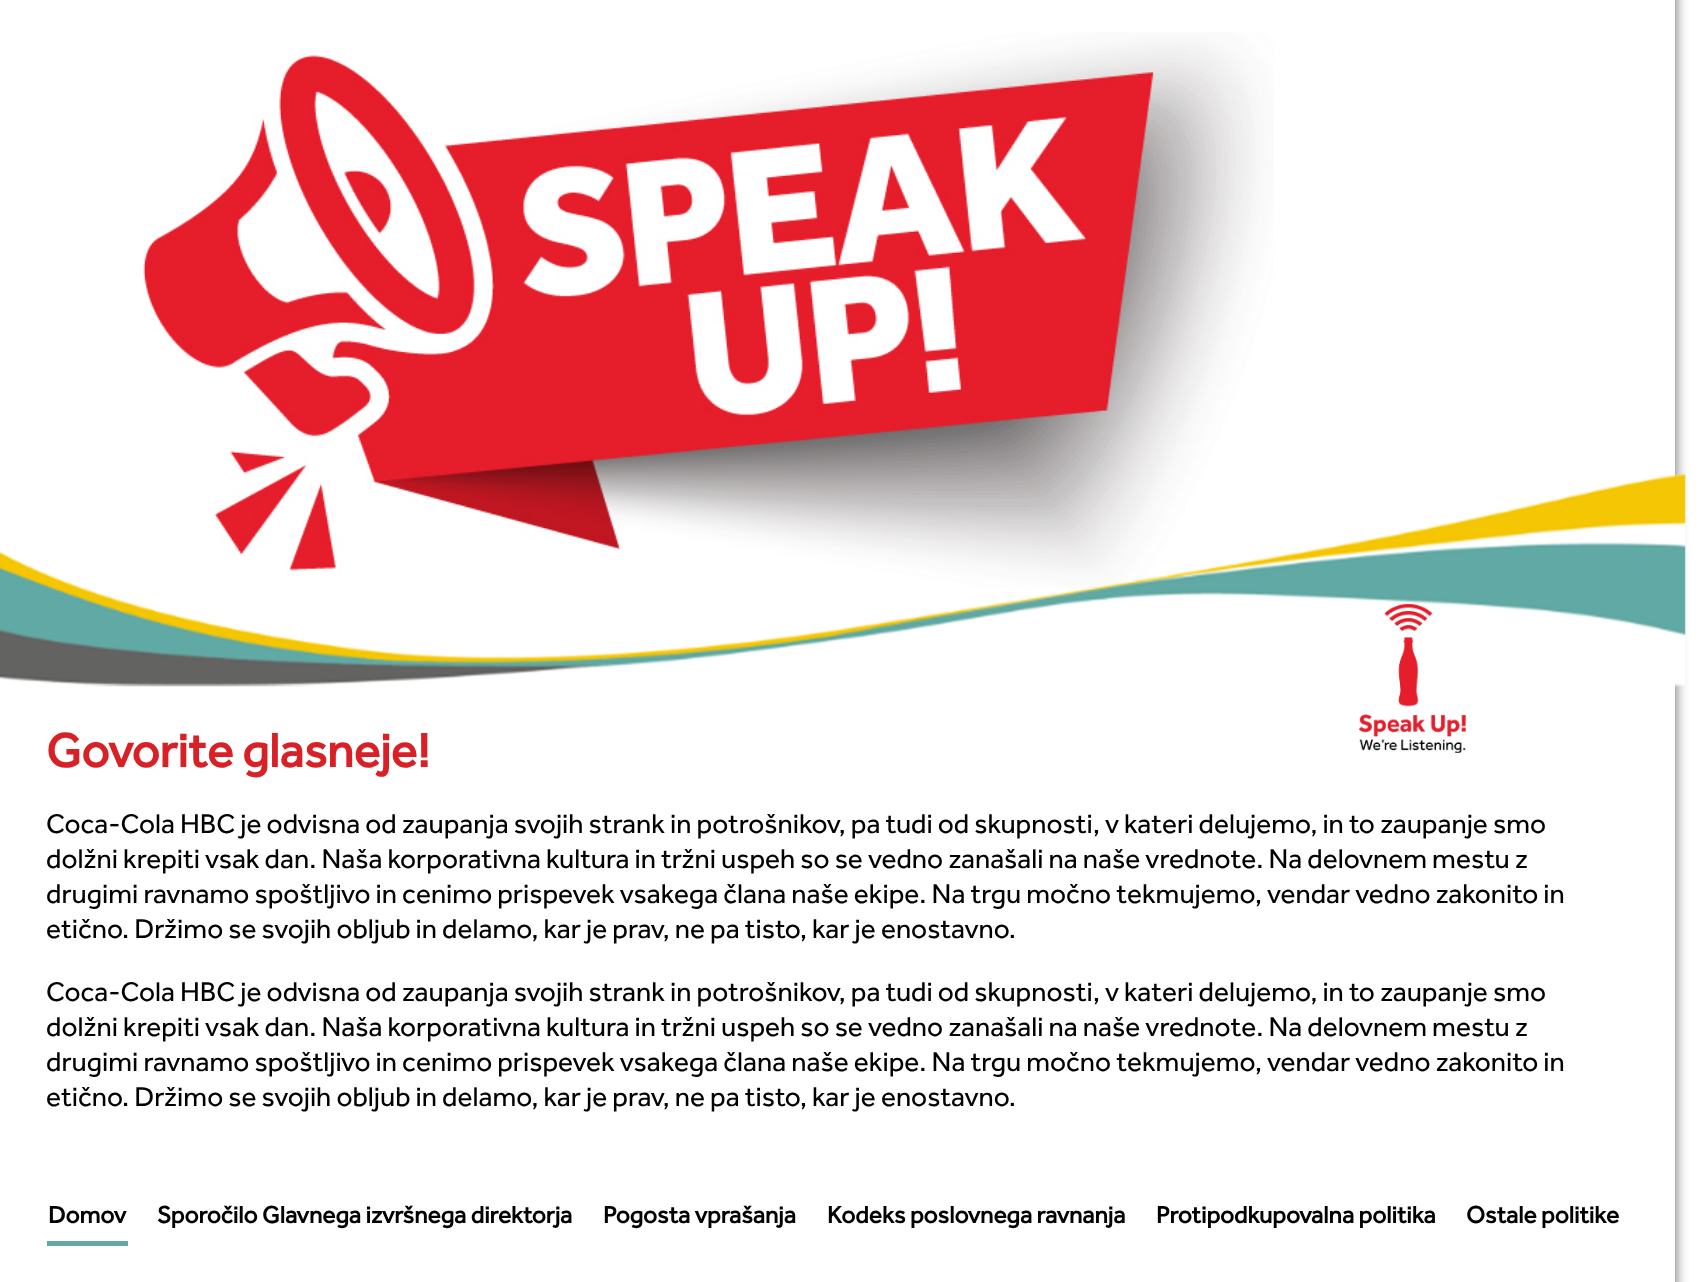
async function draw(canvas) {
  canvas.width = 1699
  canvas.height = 1282
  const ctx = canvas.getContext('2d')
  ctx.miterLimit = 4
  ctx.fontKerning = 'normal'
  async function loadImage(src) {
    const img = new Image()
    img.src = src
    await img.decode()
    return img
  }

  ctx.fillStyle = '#fff'
  ctx.fillRect(0, 0, 1699, 1282)
  ctx.save()
  ctx.beginPath()
  ctx.moveTo(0, 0)
  ctx.lineTo(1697, 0)
  ctx.lineTo(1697, 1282)
  ctx.lineTo(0, 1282)
  ctx.closePath()
  ctx.moveTo(-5, -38)
  ctx.lineTo(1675, -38)
  ctx.lineTo(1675, 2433)
  ctx.lineTo(-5, 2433)
  ctx.closePath()
  ctx.clip('evenodd')
  ctx.fillStyle = '#666'
  ctx.filter = 'blur(7px)'
  ctx.beginPath()
  ctx.rect(-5, -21, 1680, 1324)
  ctx.fill()
  ctx.filter = 'none'
  ctx.restore()
  ctx.drawImage(await loadImage('image0.png'), 143, 32, 1131, 556)
  ctx.font = 'bold 49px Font'
  ctx.fillStyle = '#d92026'
  ctx.fillText('Govorite glasneje!', 46, 767)
  ctx.drawImage(await loadImage('image1.png'), 0, 474, 1686, 279)
  ctx.font = '28px Font'
  ctx.fillStyle = '#000'
  ctx.fillText('Coca-Cola HBC je odvisna od zaupanja svojih strank in potrošnikov, pa tudi od skupnosti, v kateri delujemo, in to zaupanje smo', 46, 833)
  ctx.fillText('dolžni krepiti vsak dan. Naša korporativna kultura in tržni uspeh so se vedno zanašali na naše vrednote. Na delovnem mestu z', 46, 868)
  ctx.fillText('drugimi ravnamo spoštljivo in cenimo prispevek vsakega člana naše ekipe. Na trgu močno tekmujemo, vendar vedno zakonito in', 46, 903)
  ctx.fillText('etično. Držimo se svojih obljub in delamo, kar je prav, ne pa tisto, kar je enostavno.', 46, 938)
  ctx.fillText('Coca-Cola HBC je odvisna od zaupanja svojih strank in potrošnikov, pa tudi od skupnosti, v kateri delujemo, in to zaupanje smo', 46, 1001)
  ctx.fillText('dolžni krepiti vsak dan. Naša korporativna kultura in tržni uspeh so se vedno zanašali na naše vrednote. Na delovnem mestu z', 46, 1036)
  ctx.fillText('drugimi ravnamo spoštljivo in cenimo prispevek vsakega člana naše ekipe. Na trgu močno tekmujemo, vendar vedno zakonito in', 46, 1071)
  ctx.fillText('etično. Držimo se svojih obljub in delamo, kar je prav, ne pa tisto, kar je enostavno.', 46, 1106)
  ctx.fillStyle = '#61a9a4'
  ctx.fillRect(47, 1241, 81, 5)
  ctx.font = 'bold 24.5px Font'
  ctx.fillStyle = '#000'
  ctx.fillText('Domov', 48, 1223)
  ctx.fillText('Sporočilo Glavnega izvršnega direktorja', 157, 1223)
  ctx.fillText('Pogosta vprašanja', 603, 1223)
  ctx.fillText('Kodeks poslovnega ravnanja', 827, 1223)
  ctx.fillText('Protipodkupovalna politika', 1156, 1223)
  ctx.fillText('Ostale politike', 1466, 1223)
}

draw(document.querySelector('canvas'))
